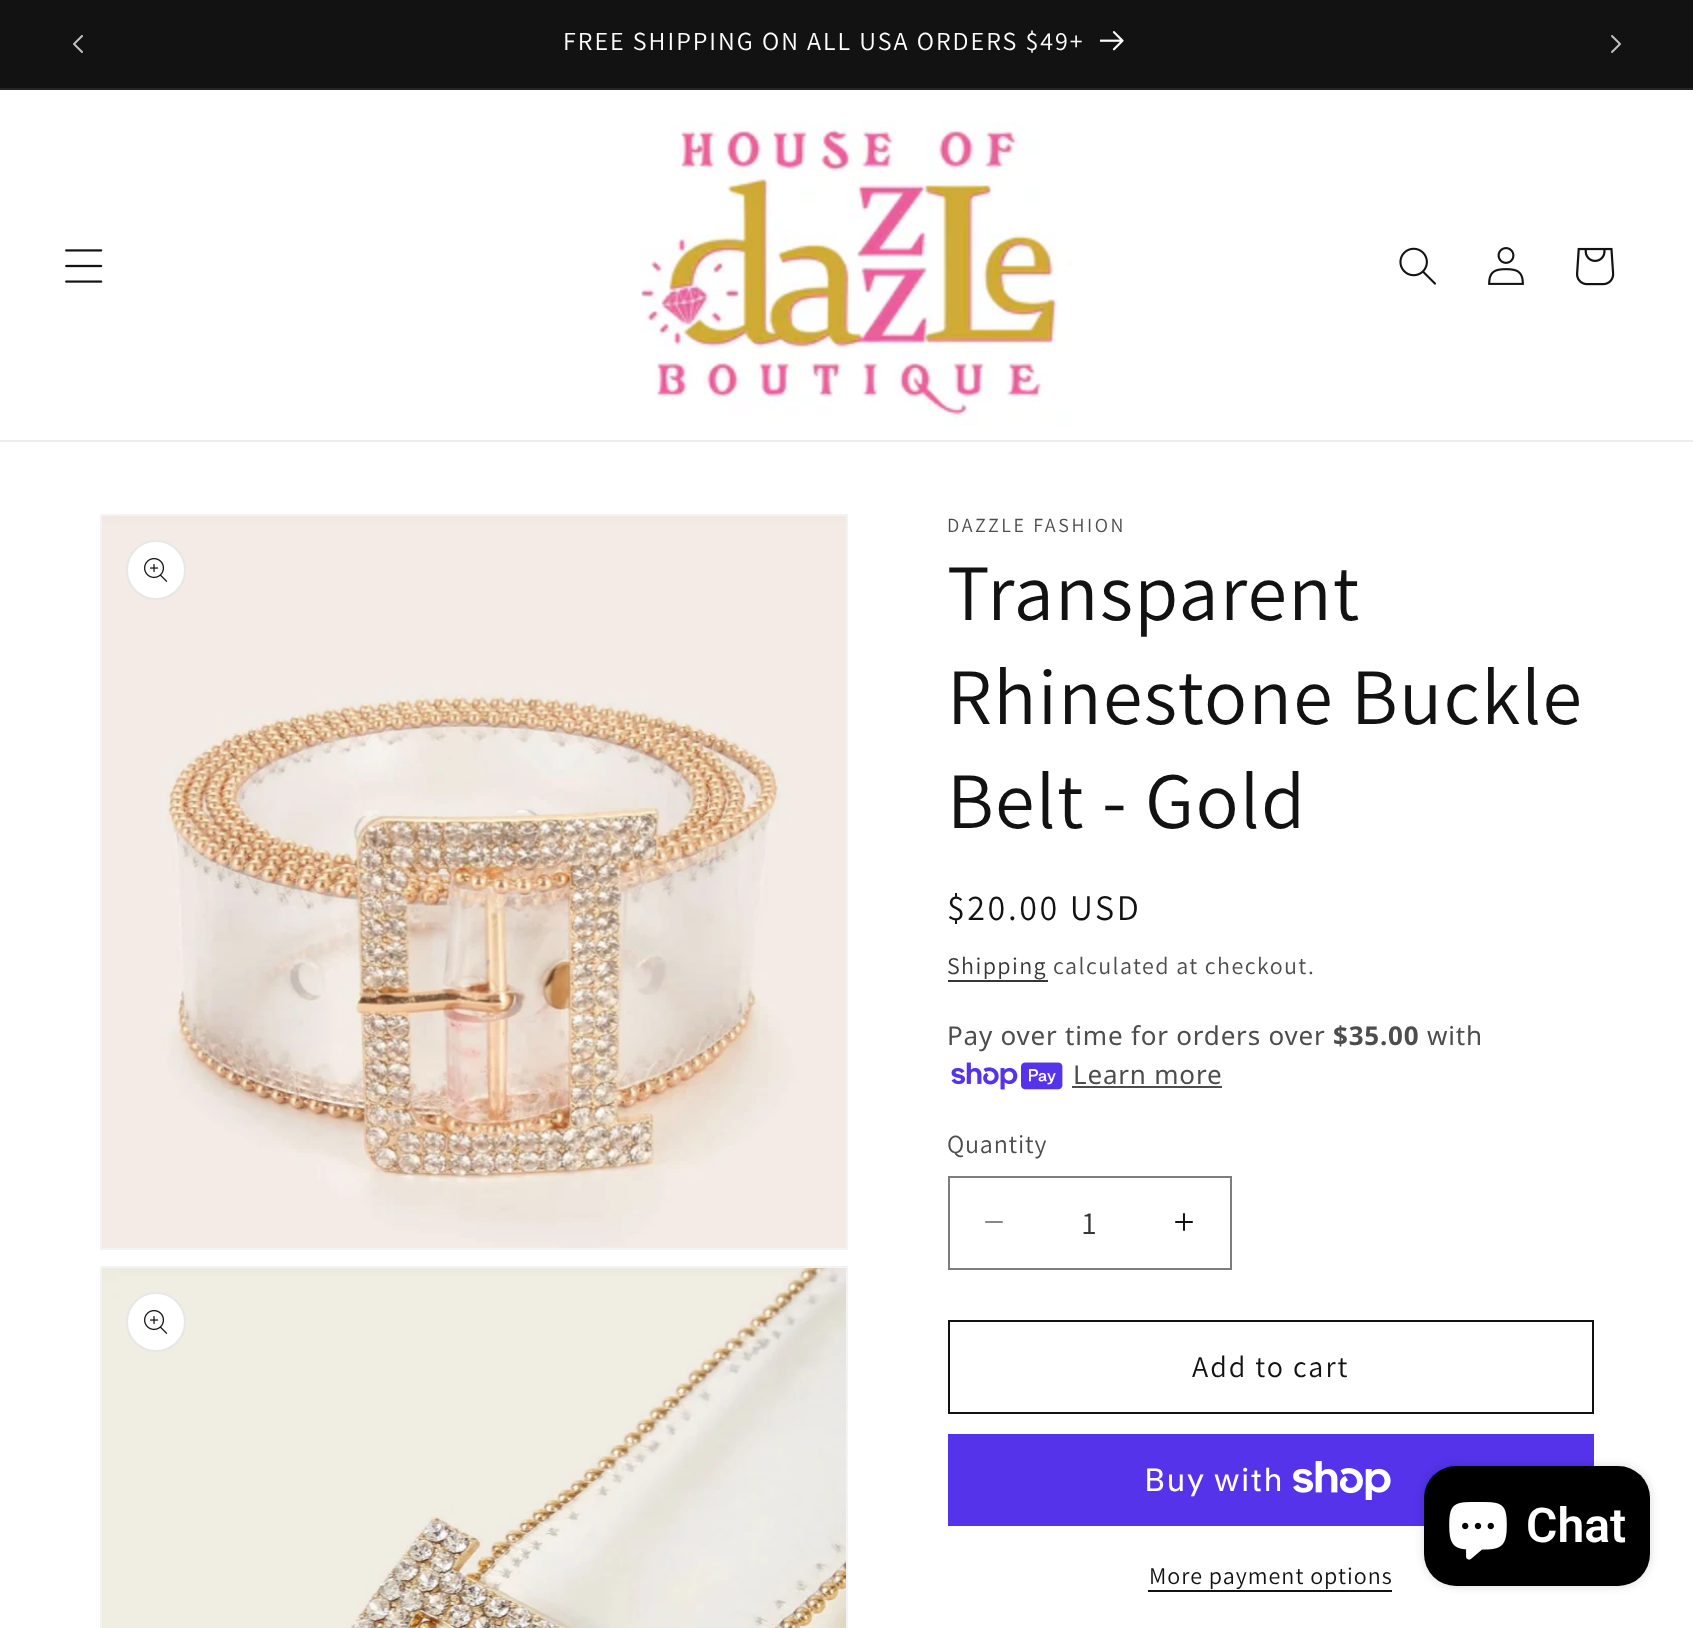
async function draw(canvas) {
  canvas.width = 1693
  canvas.height = 1628
  const ctx = canvas.getContext('2d')
  ctx.miterLimit = 4
  ctx.fontKerning = 'normal'
  async function loadImage(src) {
    const img = new Image()
    img.src = src
    await img.decode()
    return img
  }

  ctx.fillStyle = '#fff'
  ctx.fillRect(0, 0, 1693, 1628)
  ctx.fillStyle = '#121212'
  ctx.fillRect(0, 0, 1693, 88)
  ctx.fillStyle = '#252525'
  ctx.fillRect(0, 88, 1693, 2)
  ctx.drawImage(await loadImage('image0.png'), 73, 35, 10, 18)
  ctx.letterSpacing = '2px'
  ctx.font = '26px Assistant'
  ctx.fillStyle = '#fff'
  ctx.fillText('FREE SHIPPING ON ALL USA ORDERS $49+', 563, 50)
  ctx.drawImage(await loadImage('image1.png'), 1100, 31, 24, 20)
  ctx.drawImage(await loadImage('image2.png'), 1611, 35, 10, 18)
  ctx.fillStyle = '#ececec'
  ctx.fillRect(0, 440, 1693, 2)
  ctx.drawImage(await loadImage('image3.png'), 65, 249, 38, 34)
  ctx.drawImage(await loadImage('image4.png'), 641, 121, 431, 305)
  ctx.drawImage(await loadImage('image5.png'), 1399, 247, 37, 38)
  ctx.drawImage(await loadImage('image6.png'), 1488, 247, 36, 38)
  ctx.drawImage(await loadImage('image7.png'), 1576, 247, 39, 39)
  ctx.strokeStyle = '#f3f3f3'
  ctx.lineWidth = 2
  ctx.strokeRect(101, 515, 746, 734)
  ctx.drawImage(await loadImage('image8.png'), 102, 516, 744, 732)
  ctx.fillStyle = '#fff'
  ctx.beginPath()
  ctx.arc(156, 570, 30, 0, 2 * Math.PI)
  ctx.fill()
  ctx.beginPath()
  ctx.arc(156, 570, 29, 0, 2 * Math.PI)
  ctx.strokeStyle = '#1212121a'
  ctx.stroke()
  ctx.drawImage(await loadImage('image9.png'), 144, 558, 24, 24)
  ctx.strokeStyle = '#f3f3f3'
  ctx.strokeRect(101, 1267, 746, 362)
  ctx.drawImage(await loadImage('image10.png'), 102, 1268, 744, 360)
  ctx.beginPath()
  ctx.arc(156, 1322, 30, 0, 2 * Math.PI)
  ctx.fill()
  ctx.beginPath()
  ctx.arc(156, 1322, 29, 0, 2 * Math.PI)
  ctx.strokeStyle = '#1212121a'
  ctx.stroke()
  ctx.drawImage(await loadImage('image9.png'), 144, 1310, 24, 24)
  ctx.letterSpacing = '2.6px'
  ctx.font = '20px Assistant'
  ctx.fillStyle = '#4d4d4d'
  ctx.fillText('DAZZLE FASHION', 947, 532)
  ctx.letterSpacing = '1.25px'
  ctx.font = '80px Assistant'
  ctx.fillStyle = '#121212'
  ctx.fillText('Transparent', 947, 620)
  ctx.fillText('Rhinestone Buckle', 947, 724)
  ctx.fillText('Belt - Gold', 947, 828)
  ctx.letterSpacing = '2.6px'
  ctx.font = '36px Assistant'
  ctx.fillText('$20.00 USD', 947, 920)
  ctx.letterSpacing = '1.4px'
  ctx.font = '24px Assistant'
  ctx.fillStyle = '#363636'
  ctx.fillText('Shipping', 947, 974)
  ctx.fillRect(948, 980, 100, 2)
  ctx.fillStyle = '#4d4d4d'
  ctx.fillText('calculated at checkout.', 1053, 974)
  ctx.letterSpacing = '0.8px'
  ctx.font = '26px Noto Sans'
  ctx.fillText('Pay over time for orders over', 947, 1045)
  ctx.font = 'bold 26px Noto Sans'
  ctx.fillText('$35.00', 1333, 1045)
  ctx.font = '26px Noto Sans'
  ctx.fillText('with', 1427, 1045)
  ctx.drawImage(await loadImage('image11.png'), 951, 1062, 112, 28)
  ctx.fillText('Learn more', 1073, 1084)
  ctx.fillRect(1072, 1086, 150, 2)
  ctx.font = '26px Assistant'
  ctx.fillText('Quantity', 947, 1153)
  ctx.drawImage(await loadImage('image12.png'), 985, 1221, 18, 2)
  ctx.drawImage(await loadImage('image13.png'), 1175, 1213, 18, 18)
  ctx.strokeStyle = '#7d7d7d'
  ctx.strokeRect(949, 1177, 282, 92)
  ctx.letterSpacing = '0px'
  ctx.font = '32px Assistant'
  ctx.fillStyle = '#363636'
  ctx.fillText('1', 1082, 1234)
  ctx.strokeStyle = '#121212'
  ctx.strokeRect(949, 1321, 644, 92)
  ctx.letterSpacing = '2px'
  ctx.font = '30px Assistant'
  ctx.fillStyle = '#121212'
  ctx.fillText('Add to cart', 1192, 1377)
  ctx.fillStyle = '#5433eb'
  ctx.fillRect(948, 1434, 646, 92)
  ctx.letterSpacing = '1.25px'
  ctx.font = '32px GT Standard'
  ctx.fillStyle = '#fff'
  ctx.fillText('Buy with', 1144, 1491)
  ctx.drawImage(await loadImage('image14.png'), 1293, 1461, 98, 39)
  ctx.letterSpacing = '1px'
  ctx.font = '24px Assistant'
  ctx.fillStyle = '#121212'
  ctx.fillText('More payment options', 1149, 1584)
  ctx.fillRect(1148, 1590, 244, 2)
  ctx.fillStyle = '#00000026'
  ctx.filter = 'blur(5px)'
  ctx.beginPath()
  ctx.roundRect(1424, 1466, 226, 120, 32)
  ctx.fill()
  ctx.filter = 'none'
  ctx.fillStyle = '#000'
  ctx.beginPath()
  ctx.roundRect(1424, 1466, 226, 120, 32)
  ctx.fill()
  ctx.drawImage(await loadImage('image15.png'), 1449, 1502, 58, 58)
  ctx.letterSpacing = '0px'
  ctx.font = '600 48px Roboto'
  ctx.fillStyle = '#fff'
  ctx.fillText('Chat', 1526, 1542)
}

draw(document.querySelector('canvas'))
